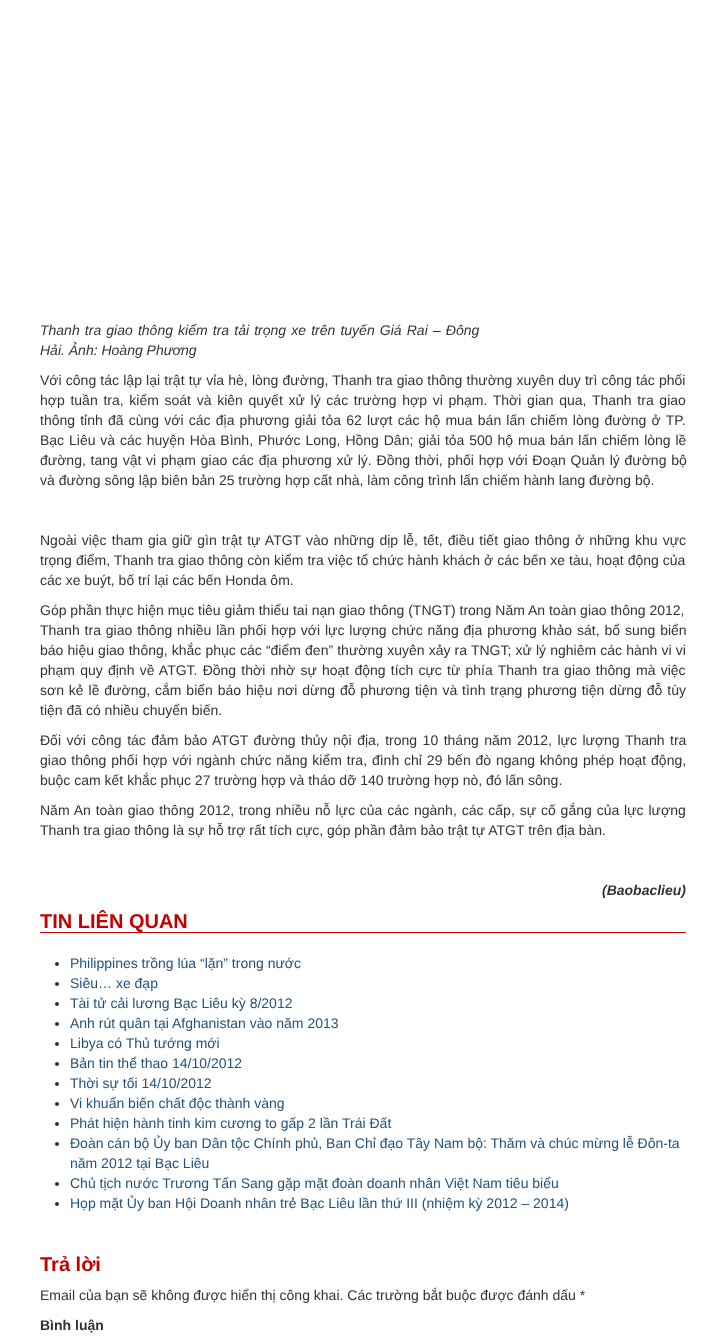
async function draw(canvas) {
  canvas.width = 726
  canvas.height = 1336
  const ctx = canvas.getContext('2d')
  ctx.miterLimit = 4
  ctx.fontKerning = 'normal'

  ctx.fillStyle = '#fff'
  ctx.fillRect(0, 0, 726, 1336)
  ctx.wordSpacing = '1.25px'
  ctx.font = 'italic 14px Liberation Sans'
  ctx.fillStyle = '#333'
  ctx.fillText('Thanh tra giao thông kiểm tra tải trọng xe trên tuyến Giá Rai – Đông', 40, 335)
  ctx.wordSpacing = '0px'
  ctx.fillText('Hải. Ảnh: Hoàng Phương', 40, 355)
  ctx.wordSpacing = '0.3px'
  ctx.font = '14px Liberation Sans'
  ctx.fillText('Với công tác lập lại trật tự vỉa hè, lòng đường, Thanh tra giao thông thường xuyên duy trì công tác phối', 40, 385)
  ctx.wordSpacing = '1.8px'
  ctx.fillText('hợp tuần tra, kiểm soát và kiên quyết xử lý các trường hợp vi phạm. Thời gian qua, Thanh tra giao', 40, 405)
  ctx.wordSpacing = '1.3px'
  ctx.fillText('thông tỉnh đã cùng với các địa phương giải tỏa 62 lượt các hộ mua bán lấn chiếm lòng đường ở TP.', 40, 425)
  ctx.wordSpacing = '1px'
  ctx.fillText('Bạc Liêu và các huyện Hòa Bình, Phước Long, Hồng Dân; giải tỏa 500 hộ mua bán lấn chiếm lòng lề', 40, 445)
  ctx.wordSpacing = '0.9px'
  ctx.fillText('đường, tang vật vi phạm giao các địa phương xử lý. Đồng thời, phối hợp với Đoạn Quản lý đường bộ', 40, 465)
  ctx.wordSpacing = '0px'
  ctx.fillText('và đường sông lập biên bản 25 trường hợp cất nhà, làm công trình lấn chiếm hành lang đường bộ.', 40, 485)
  ctx.wordSpacing = '1.25px'
  ctx.fillText('Ngoài việc tham gia giữ gìn trật tự ATGT vào những dịp lễ, tết, điều tiết giao thông ở những khu vực', 40, 545)
  ctx.wordSpacing = '0.1px'
  ctx.fillText('trọng điểm, Thanh tra giao thông còn kiểm tra việc tổ chức hành khách ở các bến xe tàu, hoạt động của', 40, 565)
  ctx.wordSpacing = '0px'
  ctx.fillText('các xe buýt, bố trí lại các bến Honda ôm.', 40, 585)
  ctx.fillText('Góp phần thực hiện mục tiêu giảm thiểu tai nạn giao thông (TNGT) trong Năm An toàn giao thông 2012,', 40, 615)
  ctx.wordSpacing = '1px'
  ctx.fillText('Thanh tra giao thông nhiều lần phối hợp với lực lượng chức năng địa phương khảo sát, bổ sung biển', 40, 635)
  ctx.wordSpacing = '0.25px'
  ctx.fillText('báo hiệu giao thông, khắc phục các “điểm đen” thường xuyên xảy ra TNGT; xử lý nghiêm các hành vi vi', 40, 655)
  ctx.wordSpacing = '1.3px'
  ctx.fillText('phạm quy định về ATGT. Đồng thời nhờ sự hoạt động tích cực từ phía Thanh tra giao thông mà việc', 40, 675)
  ctx.wordSpacing = '1px'
  ctx.fillText('sơn kẻ lề đường, cắm biển báo hiệu nơi dừng đỗ phương tiện và tình trạng phương tiện dừng đỗ tùy', 40, 695)
  ctx.wordSpacing = '0px'
  ctx.fillText('tiện đã có nhiều chuyển biến.', 40, 715)
  ctx.wordSpacing = '1.6px'
  ctx.fillText('Đối với công tác đảm bảo ATGT đường thủy nội địa, trong 10 tháng năm 2012, lực lượng Thanh tra', 40, 745)
  ctx.wordSpacing = '1px'
  ctx.fillText('giao thông phối hợp với ngành chức năng kiểm tra, đình chỉ 29 bến đò ngang không phép hoạt động,', 40, 765)
  ctx.wordSpacing = '0px'
  ctx.fillText('buộc cam kết khắc phục 27 trường hợp và tháo dỡ 140 trường hợp nò, đó lấn sông.', 40, 785)
  ctx.wordSpacing = '1px'
  ctx.fillText('Năm An toàn giao thông 2012, trong nhiều nỗ lực của các ngành, các cấp, sự cố gắng của lực lượng', 40, 815)
  ctx.wordSpacing = '0px'
  ctx.fillText('Thanh tra giao thông là sự hỗ trợ rất tích cực, góp phần đảm bảo trật tự ATGT trên địa bàn.', 40, 835)
  ctx.font = 'italic bold 14px Liberation Sans'
  ctx.fillText('(Baobaclieu)', 602, 895)
  ctx.fillStyle = '#c10000'
  ctx.fillRect(40, 932, 646, 1)
  ctx.font = 'bold 20px Liberation Sans'
  ctx.fillText('TIN LIÊN QUAN', 40, 928)
  ctx.fillStyle = '#333'
  ctx.beginPath()
  ctx.arc(57, 964, 2, 0, 2 * Math.PI)
  ctx.fill()
  ctx.font = '14px Liberation Sans'
  ctx.fillStyle = '#23527c'
  ctx.fillText('Philippines trồng lúa “lặn” trong nước', 70, 968)
  ctx.fillStyle = '#333'
  ctx.beginPath()
  ctx.arc(57, 984, 2, 0, 2 * Math.PI)
  ctx.fill()
  ctx.fillStyle = '#23527c'
  ctx.fillText('Siêu… xe đạp', 70, 988)
  ctx.fillStyle = '#333'
  ctx.beginPath()
  ctx.arc(57, 1004, 2, 0, 2 * Math.PI)
  ctx.fill()
  ctx.fillStyle = '#23527c'
  ctx.fillText('Tài tử cải lương Bạc Liêu kỳ 8/2012', 70, 1008)
  ctx.fillStyle = '#333'
  ctx.beginPath()
  ctx.arc(57, 1024, 2, 0, 2 * Math.PI)
  ctx.fill()
  ctx.fillStyle = '#23527c'
  ctx.fillText('Anh rút quân tại Afghanistan vào năm 2013', 70, 1028)
  ctx.fillStyle = '#333'
  ctx.beginPath()
  ctx.arc(57, 1044, 2, 0, 2 * Math.PI)
  ctx.fill()
  ctx.fillStyle = '#23527c'
  ctx.fillText('Libya có Thủ tướng mới', 70, 1048)
  ctx.fillStyle = '#333'
  ctx.beginPath()
  ctx.arc(57, 1064, 2, 0, 2 * Math.PI)
  ctx.fill()
  ctx.fillStyle = '#23527c'
  ctx.fillText('Bản tin thể thao 14/10/2012', 70, 1068)
  ctx.fillStyle = '#333'
  ctx.beginPath()
  ctx.arc(57, 1084, 2, 0, 2 * Math.PI)
  ctx.fill()
  ctx.fillStyle = '#23527c'
  ctx.fillText('Thời sự tối 14/10/2012', 70, 1088)
  ctx.fillStyle = '#333'
  ctx.beginPath()
  ctx.arc(57, 1104, 2, 0, 2 * Math.PI)
  ctx.fill()
  ctx.fillStyle = '#23527c'
  ctx.fillText('Vi khuẩn biến chất độc thành vàng', 70, 1108)
  ctx.fillStyle = '#333'
  ctx.beginPath()
  ctx.arc(57, 1124, 2, 0, 2 * Math.PI)
  ctx.fill()
  ctx.fillStyle = '#23527c'
  ctx.fillText('Phát hiện hành tinh kim cương to gấp 2 lần Trái Đất', 70, 1128)
  ctx.fillStyle = '#333'
  ctx.beginPath()
  ctx.arc(57, 1144, 2, 0, 2 * Math.PI)
  ctx.fill()
  ctx.fillStyle = '#23527c'
  ctx.fillText('Đoàn cán bộ Ủy ban Dân tộc Chính phủ, Ban Chỉ đạo Tây Nam bộ: Thăm và chúc mừng lễ Đôn-ta', 70, 1148)
  ctx.fillText('năm 2012 tại Bạc Liêu', 70, 1168)
  ctx.fillStyle = '#333'
  ctx.beginPath()
  ctx.arc(57, 1184, 2, 0, 2 * Math.PI)
  ctx.fill()
  ctx.fillStyle = '#23527c'
  ctx.fillText('Chủ tịch nước Trương Tấn Sang gặp mặt đoàn doanh nhân Việt Nam tiêu biểu', 70, 1188)
  ctx.fillStyle = '#333'
  ctx.beginPath()
  ctx.arc(57, 1204, 2, 0, 2 * Math.PI)
  ctx.fill()
  ctx.fillStyle = '#23527c'
  ctx.fillText('Họp mặt Ủy ban Hội Doanh nhân trẻ Bạc Liêu lần thứ III (nhiệm kỳ 2012 – 2014)', 70, 1208)
  ctx.font = 'bold 20px Liberation Sans'
  ctx.fillStyle = '#c10000'
  ctx.fillText('Trả lời', 40, 1271)
  ctx.font = '14px Liberation Sans'
  ctx.fillStyle = '#333'
  ctx.fillText('Email của bạn sẽ không được hiển thị công khai. Các trường bắt buộc được đánh dấu *', 40, 1300)
  ctx.font = 'bold 14px Liberation Sans'
  ctx.fillText('Bình luận', 40, 1330)
}

draw(document.querySelector('canvas'))
